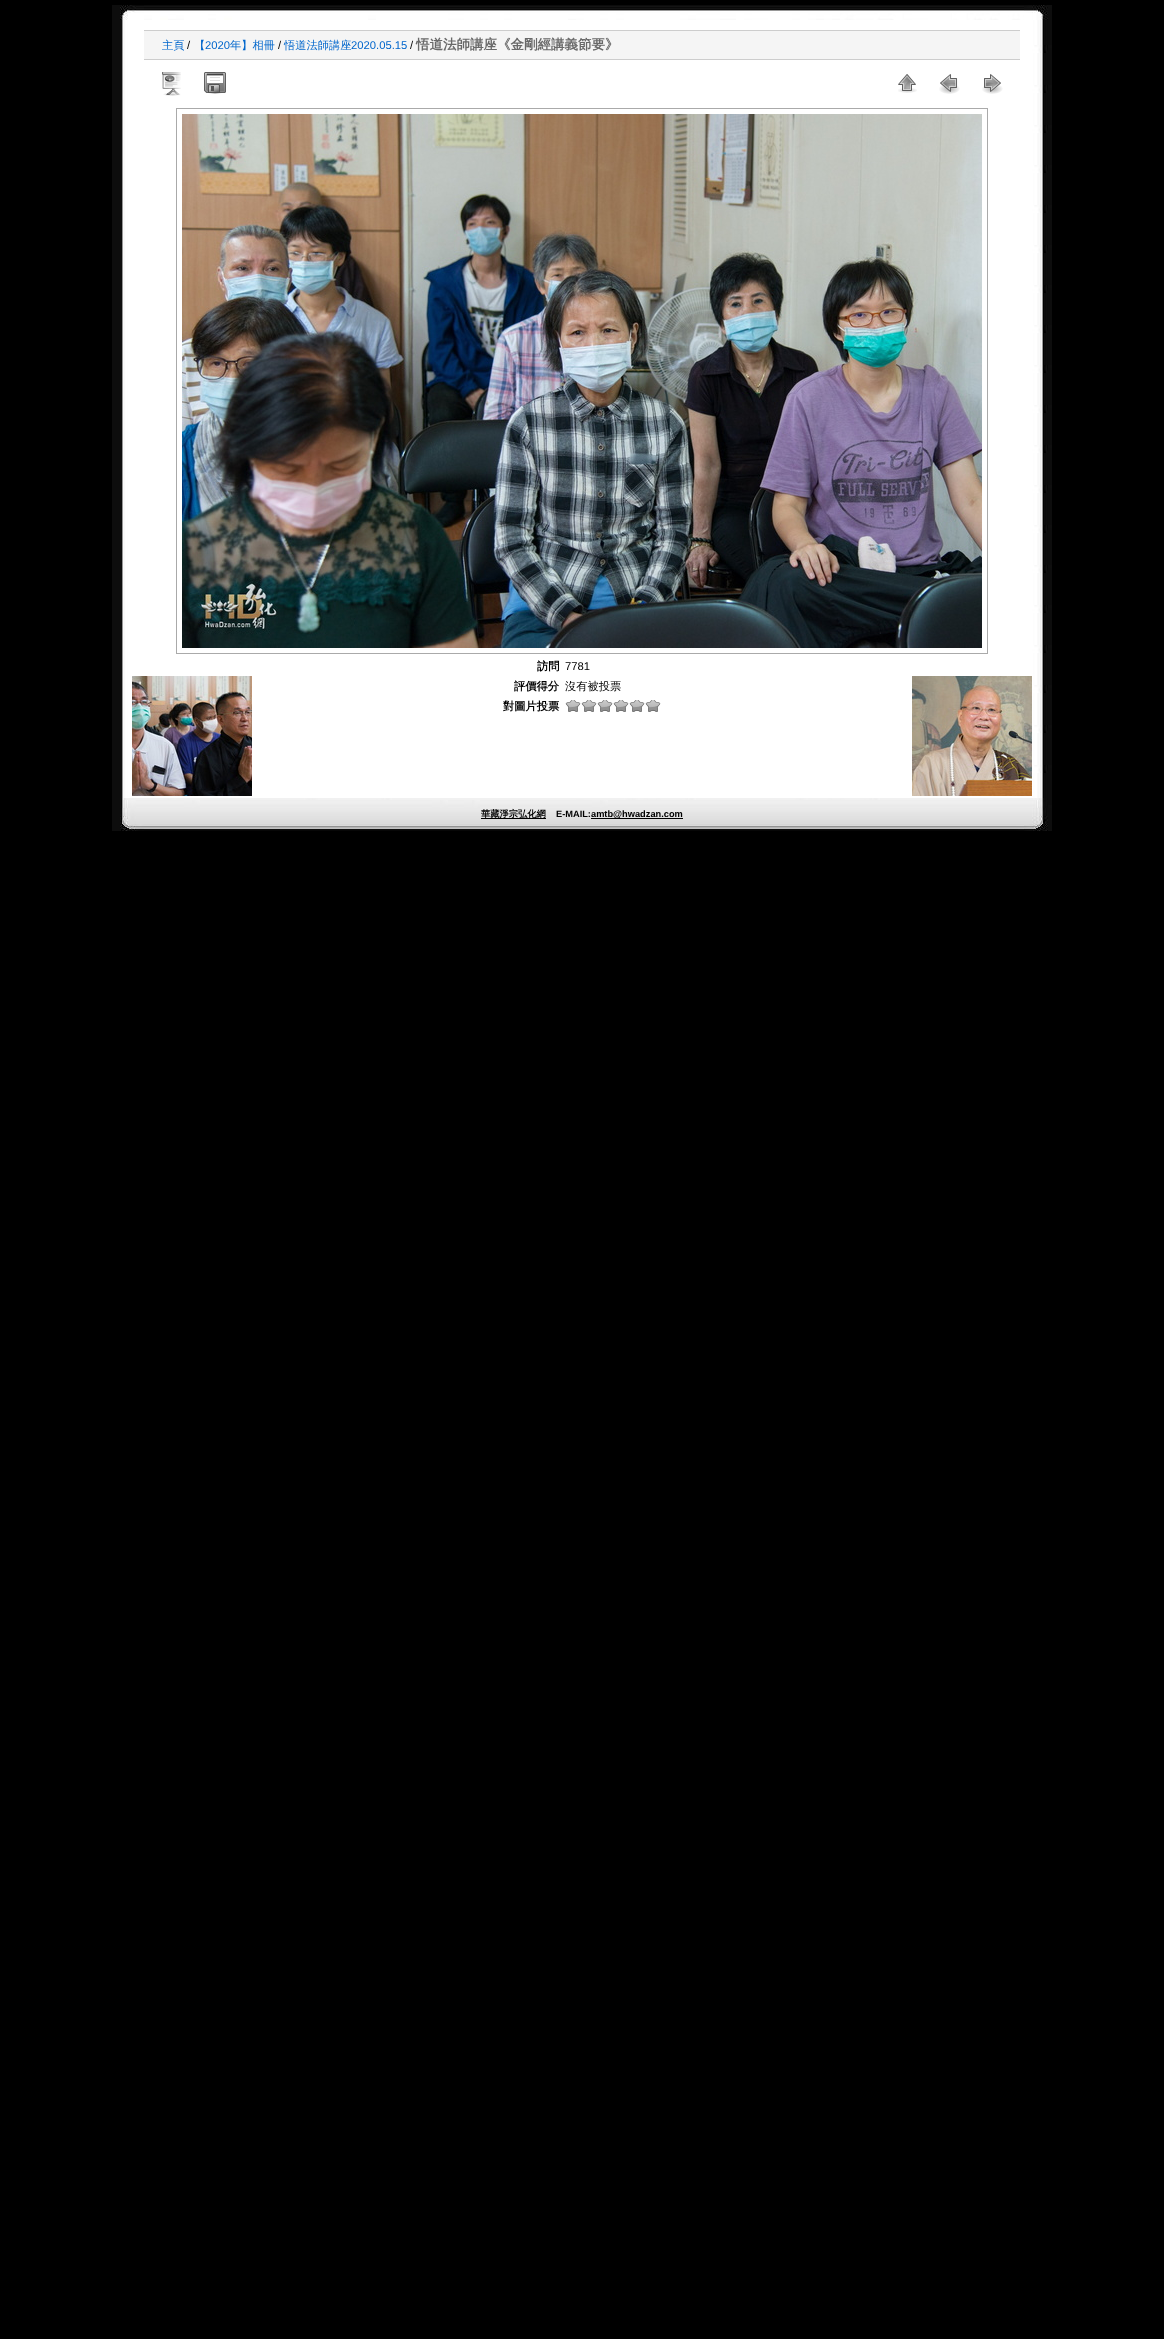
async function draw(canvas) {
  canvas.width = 1164
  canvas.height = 2339
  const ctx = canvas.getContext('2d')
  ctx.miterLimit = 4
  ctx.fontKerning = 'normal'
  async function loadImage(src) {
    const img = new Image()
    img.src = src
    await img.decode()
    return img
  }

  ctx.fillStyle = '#000'
  ctx.fillRect(0, 0, 1164, 2339)
  ctx.drawImage(await loadImage('image0.png'), 112, 5, 940, 826)
  ctx.drawImage(await loadImage('image1.png'), 120, 5, 928, 15)
  ctx.fillStyle = '#f5f5f5'
  ctx.fillRect(144, 31, 876, 28)
  ctx.fillStyle = '#cdcdcd'
  ctx.fillRect(144, 30, 876, 1)
  ctx.fillRect(144, 59, 876, 1)
  ctx.font = '500 11.25px WenQuanYi Zen Hei'
  ctx.fillStyle = '#06c'
  ctx.fillText('主頁', 162, 49)
  ctx.font = '11.25px Liberation Sans'
  ctx.fillStyle = '#000'
  ctx.fillText('/', 187, 49)
  ctx.font = '500 11.25px WenQuanYi Zen Hei'
  ctx.fillStyle = '#06c'
  ctx.fillText('【', 194, 49)
  ctx.font = '11.25px Liberation Sans'
  ctx.fillText('2020', 205, 49)
  ctx.font = '500 11.25px WenQuanYi Zen Hei'
  ctx.fillText('年】相冊', 230, 49)
  ctx.font = '11.25px Liberation Sans'
  ctx.fillStyle = '#000'
  ctx.fillText('/', 278, 49)
  ctx.font = '500 11.25px WenQuanYi Zen Hei'
  ctx.fillStyle = '#06c'
  ctx.fillText('悟道法師講座', 284, 49)
  ctx.font = '11.25px Liberation Sans'
  ctx.fillText('2020.05.15', 351, 49)
  ctx.fillStyle = '#000'
  ctx.fillText('/', 410, 49)
  ctx.font = 'bold 13.5px WenQuanYi Zen Hei'
  ctx.fillStyle = '#696969'
  ctx.fillText('悟道法師講座《金剛經講義節要》', 416, 49)
  ctx.drawImage(await loadImage('image2.png'), 162, 72, 19, 24)
  ctx.drawImage(await loadImage('image3.png'), 204, 72, 22, 22)
  ctx.drawImage(await loadImage('image4.png'), 898, 74, 19, 19)
  ctx.drawImage(await loadImage('image5.png'), 939, 74, 21, 20)
  ctx.drawImage(await loadImage('image6.png'), 982, 74, 21, 20)
  ctx.strokeStyle = '#aaa'
  ctx.strokeRect(176.5, 108.5, 811, 545)
  ctx.drawImage(await loadImage('image7.png'), 182, 114, 800, 534)
  ctx.font = 'bold 11.25px WenQuanYi Zen Hei'
  ctx.fillStyle = '#000'
  ctx.fillText('訪問', 537, 670)
  ctx.font = '11.25px Liberation Sans'
  ctx.fillText('7781', 565, 670)
  ctx.font = 'bold 11.25px WenQuanYi Zen Hei'
  ctx.fillText('評價得分', 514, 690)
  ctx.font = '500 11.25px WenQuanYi Zen Hei'
  ctx.fillText('沒有被投票', 565, 690)
  ctx.font = 'bold 11.25px WenQuanYi Zen Hei'
  ctx.fillText('對圖片投票', 503, 710)
  ctx.drawImage(await loadImage('image8.png'), 565, 700, 16, 12)
  ctx.drawImage(await loadImage('image8.png'), 581, 700, 16, 12)
  ctx.drawImage(await loadImage('image8.png'), 597, 700, 16, 12)
  ctx.drawImage(await loadImage('image8.png'), 613, 700, 16, 12)
  ctx.drawImage(await loadImage('image8.png'), 629, 700, 16, 12)
  ctx.drawImage(await loadImage('image8.png'), 645, 700, 16, 12)
  ctx.drawImage(await loadImage('image9.png'), 132, 676, 120, 120)
  ctx.drawImage(await loadImage('image10.png'), 912, 676, 120, 120)
  ctx.drawImage(await loadImage('image11.png'), 120, 798, 928, 33)
  ctx.fillRect(481, 818, 65, 1)
  ctx.font = 'bold 9.25px WenQuanYi Zen Hei'
  ctx.fillText('華藏淨宗弘化網', 481, 817)
  ctx.font = 'bold 9.25px Liberation Sans'
  ctx.fillText('E-MAIL:', 556, 817)
  ctx.fillRect(591, 818, 92, 1)
  ctx.fillText('amtb@hwadzan.com', 591, 817)
}

draw(document.querySelector('canvas'))
